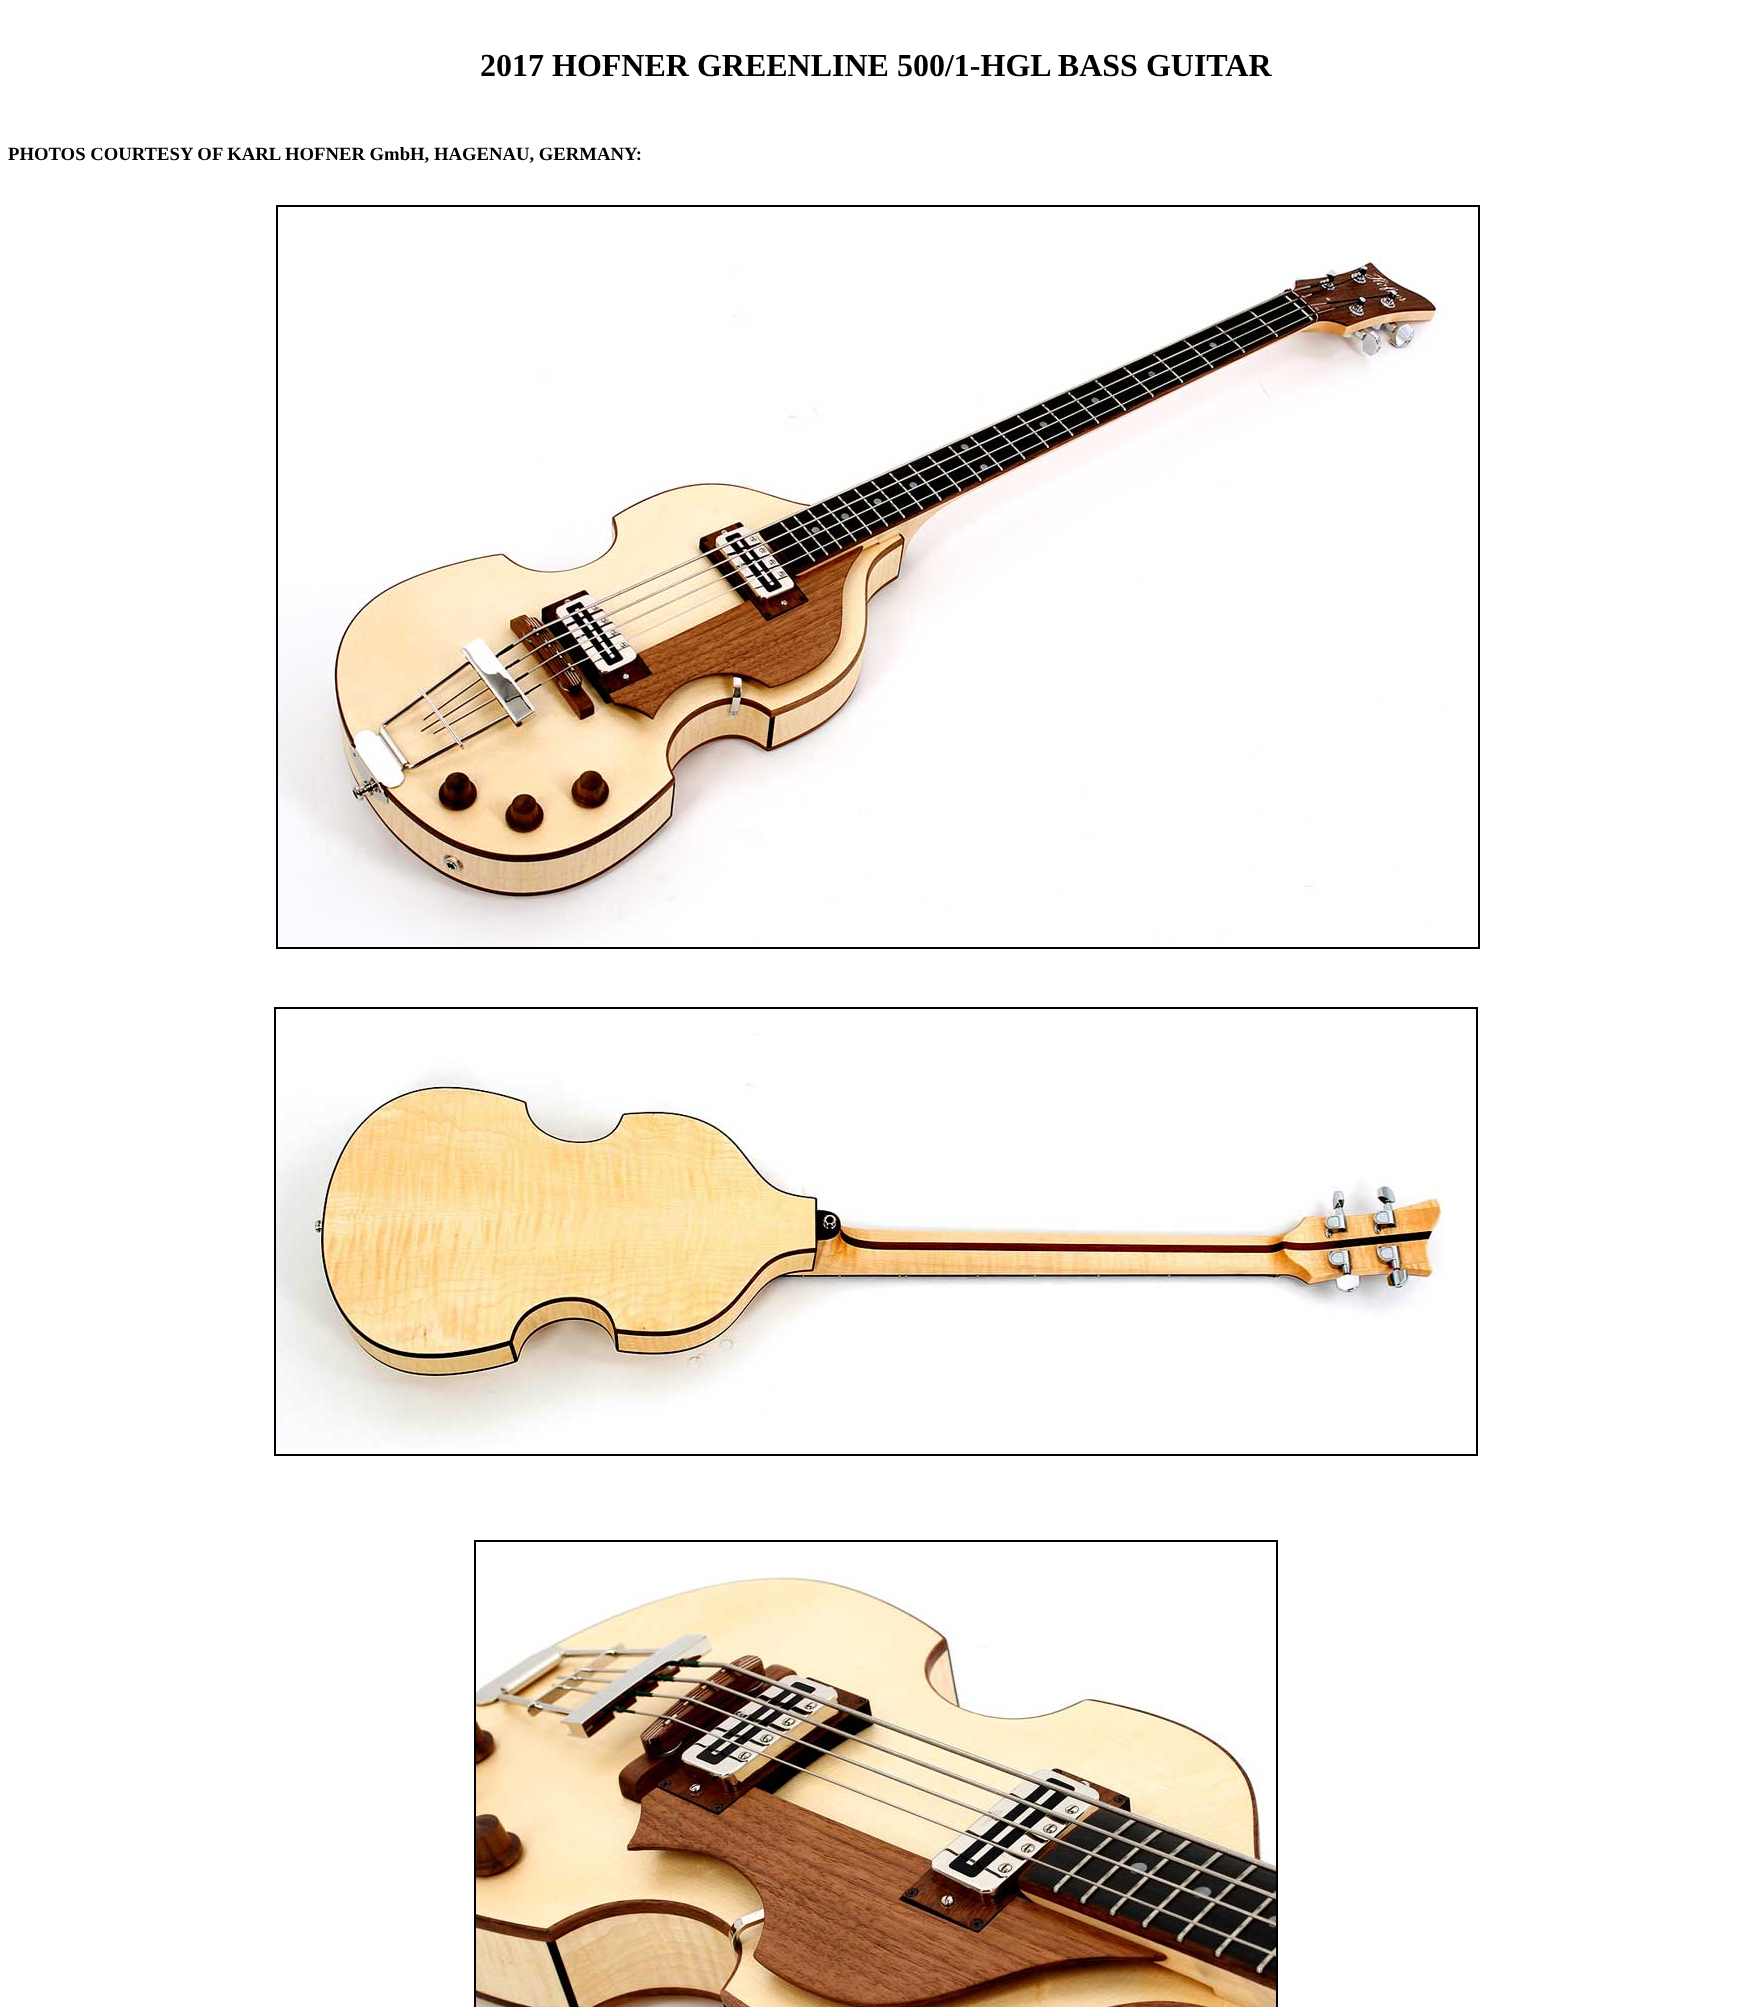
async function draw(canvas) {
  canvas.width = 1752
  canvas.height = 2007
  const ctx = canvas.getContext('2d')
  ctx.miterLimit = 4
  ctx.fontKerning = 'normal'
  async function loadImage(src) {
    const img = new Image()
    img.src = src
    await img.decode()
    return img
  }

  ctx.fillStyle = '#fff'
  ctx.fillRect(0, 0, 1752, 2007)
  ctx.font = 'bold 32px Liberation Serif'
  ctx.fillStyle = '#000'
  ctx.fillText('2017 HOFNER GREENLINE 500/1-HGL BASS GUITAR', 480, 76)
  ctx.font = 'bold 18.7px Liberation Serif'
  ctx.fillText('PHOTOS COURTESY OF KARL HOFNER GmbH, HAGENAU, GERMANY:', 8, 160)
  ctx.strokeStyle = '#000'
  ctx.lineWidth = 2
  ctx.strokeRect(277, 206, 1202, 742)
  ctx.drawImage(await loadImage('image0.png'), 278, 255, 1168, 692)
  ctx.strokeRect(275, 1008, 1202, 447)
  ctx.drawImage(await loadImage('image1.png'), 276, 1033, 1168, 416)
  ctx.strokeRect(475, 1541, 802, 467)
  ctx.drawImage(await loadImage('image2.png'), 476, 1574, 800, 433)
}

draw(document.querySelector('canvas'))
